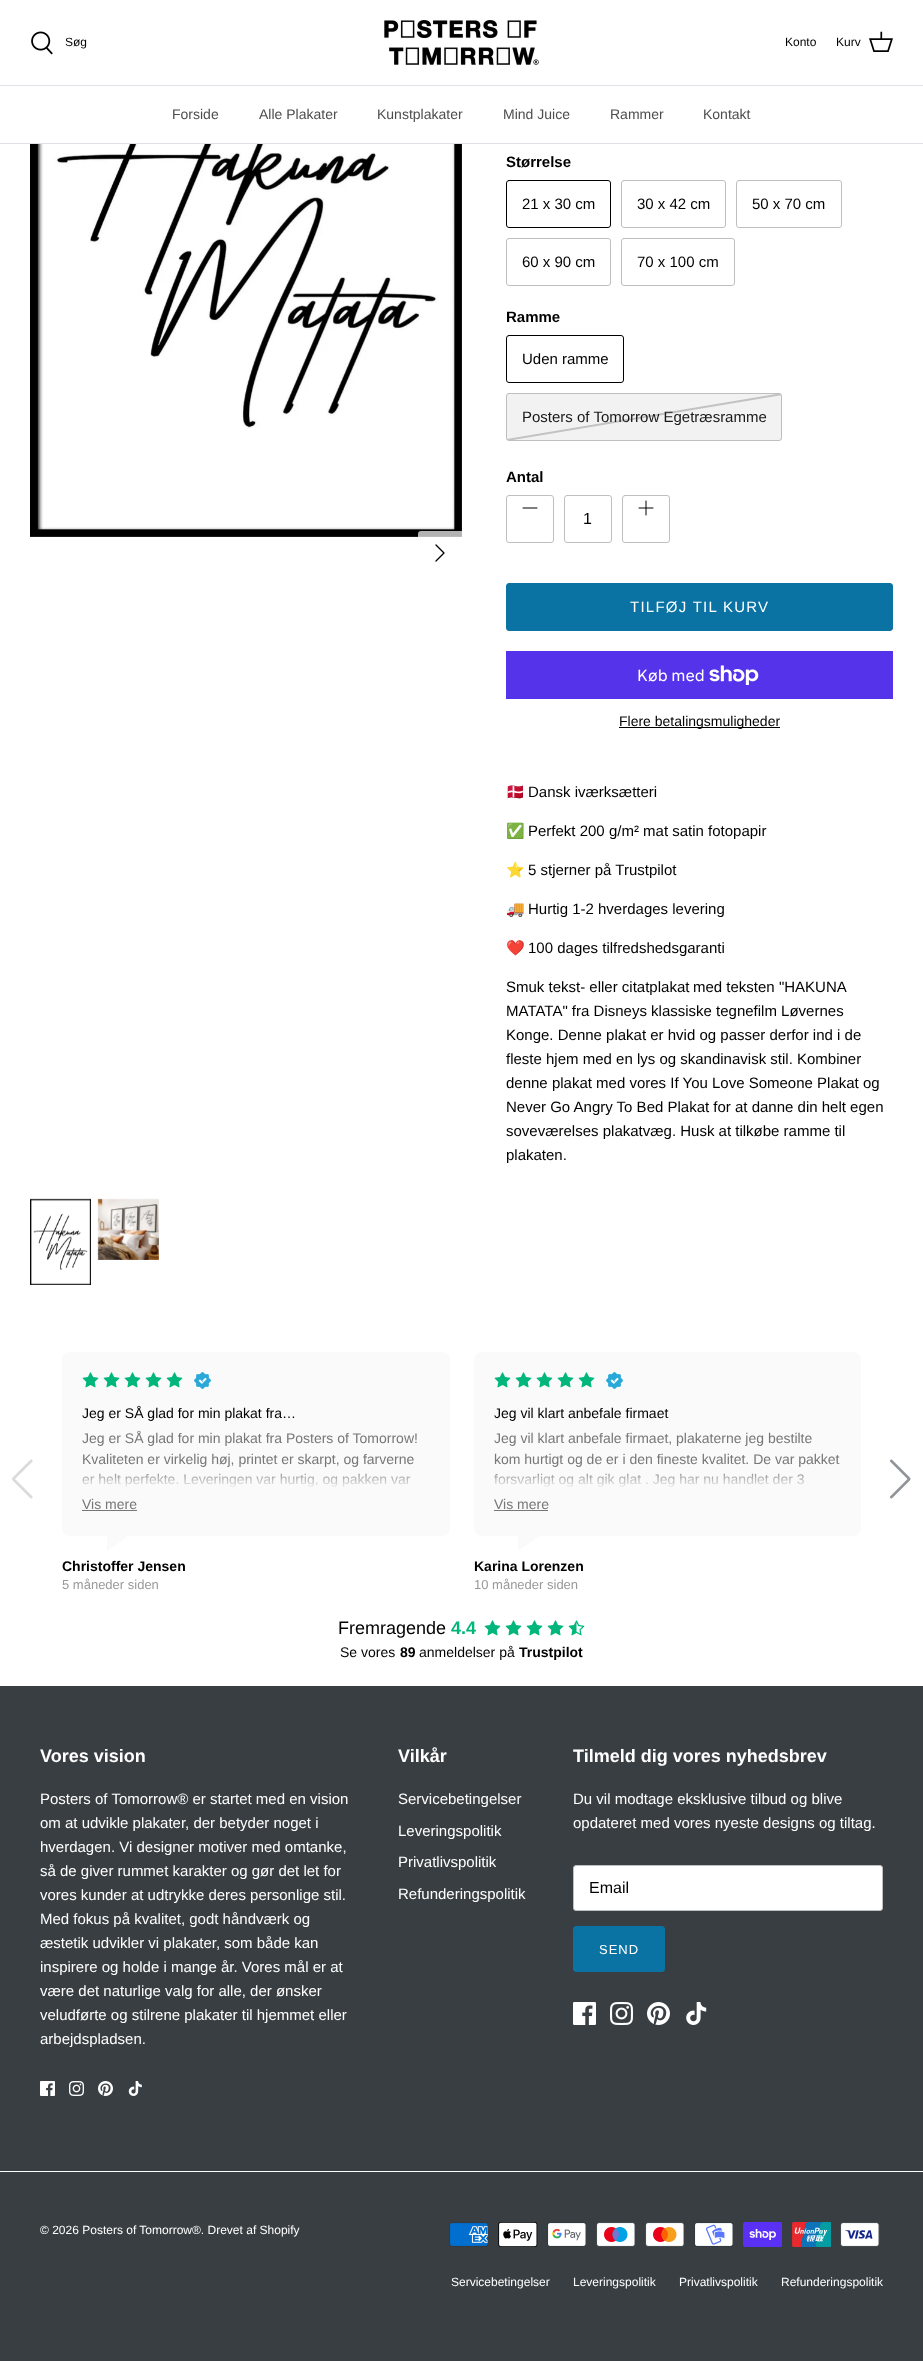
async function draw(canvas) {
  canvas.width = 923
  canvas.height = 2361
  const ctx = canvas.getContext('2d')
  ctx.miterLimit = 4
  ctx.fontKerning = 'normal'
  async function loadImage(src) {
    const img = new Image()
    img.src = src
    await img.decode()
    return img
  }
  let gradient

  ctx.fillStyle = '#fff'
  ctx.fillRect(0, 0, 923, 2361)
  ctx.fillStyle = '#dfe3e8'
  ctx.fillRect(0, 85, 923, 1)
  ctx.drawImage(await loadImage('image0.png'), 31, 31, 22, 24)
  ctx.font = '12px Liberation Sans'
  ctx.fillStyle = '#000'
  ctx.fillText('Søg', 65, 46)
  ctx.drawImage(await loadImage('image1.png'), 384, 20, 155, 45)
  ctx.fillText('Konto', 785, 46)
  ctx.fillText('Kurv', 836, 46)
  ctx.drawImage(await loadImage('image2.png'), 869, 31, 24, 21)
  ctx.fillStyle = '#dfe3e8'
  ctx.fillRect(0, 143, 923, 1)
  ctx.font = '14px Liberation Sans'
  ctx.fillStyle = '#4d4d4d'
  ctx.fillText('Forside', 172, 119)
  ctx.fillText('Alle Plakater', 259, 119)
  ctx.fillText('Kunstplakater', 377, 119)
  ctx.fillText('Mind Juice', 503, 119)
  ctx.fillText('Rammer', 610, 119)
  ctx.fillText('Kontakt', 703, 119)
  ctx.drawImage(await loadImage('image3.png'), 30, 144, 432, 393)
  ctx.fillStyle = '#ffffffb3'
  ctx.beginPath()
  ctx.roundRect(418, 531, 44, 44, [3, 0, 0, 3])
  ctx.fill()
  ctx.beginPath()
  ctx.moveTo(436, 561)
  ctx.lineTo(444, 553)
  ctx.lineTo(436, 545)
  ctx.strokeStyle = '#000'
  ctx.lineWidth = 1.3
  ctx.lineCap = 'round'
  ctx.lineJoin = 'round'
  ctx.stroke()
  ctx.drawImage(await loadImage('image4.png'), 30, 1198, 61, 87)
  ctx.drawImage(await loadImage('image5.png'), 97, 1198, 62, 62)
  ctx.font = 'bold 15px Liberation Sans'
  ctx.fillStyle = '#000'
  ctx.fillText('Størrelse', 506, 167)
  ctx.beginPath()
  ctx.roundRect(506.5, 180.5, 104, 47, 2.5)
  ctx.lineWidth = 1
  ctx.lineJoin = 'miter'
  ctx.stroke()
  ctx.font = '15px Liberation Sans'
  ctx.fillText('21 x 30 cm', 522, 209)
  ctx.beginPath()
  ctx.roundRect(621.5, 180.5, 104, 47, 2.5)
  ctx.strokeStyle = '#bfbfbf'
  ctx.stroke()
  ctx.fillText('30 x 42 cm', 637, 209)
  ctx.beginPath()
  ctx.roundRect(736.5, 180.5, 105, 47, 2.5)
  ctx.stroke()
  ctx.fillText('50 x 70 cm', 752, 209)
  ctx.beginPath()
  ctx.roundRect(506.5, 238.5, 104, 47, 2.5)
  ctx.stroke()
  ctx.fillText('60 x 90 cm', 522, 267)
  ctx.beginPath()
  ctx.roundRect(621.5, 238.5, 113, 47, 2.5)
  ctx.stroke()
  ctx.fillText('70 x 100 cm', 637, 267)
  ctx.font = 'bold 15px Liberation Sans'
  ctx.fillText('Ramme', 506, 322)
  ctx.beginPath()
  ctx.roundRect(506.5, 335.5, 117, 47, 2.5)
  ctx.strokeStyle = '#000'
  ctx.stroke()
  ctx.font = '15px Liberation Sans'
  ctx.fillText('Uden ramme', 522, 364)
  ctx.fillStyle = '#f2f2f2'
  ctx.beginPath()
  ctx.roundRect(506, 393, 276, 48, 3)
  ctx.fill()
  ctx.save()
  ctx.beginPath()
  ctx.rect(507, 394, 274, 46)
  ctx.clip()
  ctx.beginPath()
  ctx.moveTo(782, 394)
  ctx.lineTo(507, 440)
  ctx.strokeStyle = '#c2c2c2'
  ctx.lineWidth = 1.9
  ctx.lineCap = 'butt'
  ctx.stroke()
  ctx.restore()
  ctx.beginPath()
  ctx.roundRect(506.5, 393.5, 275, 47, 2.5)
  ctx.strokeStyle = '#bfbfbf'
  ctx.stroke()
  ctx.fillStyle = '#181818'
  ctx.fillText('Posters of Tomorrow Egetræsramme', 522, 422)
  ctx.font = 'bold 15px Liberation Sans'
  ctx.fillStyle = '#000'
  ctx.fillText('Antal', 506, 482)
  ctx.beginPath()
  ctx.roundRect(506.5, 495.5, 47, 47, 2.5)
  ctx.stroke()
  ctx.beginPath()
  ctx.moveTo(523, 508)
  ctx.lineTo(537, 508)
  ctx.strokeStyle = '#000'
  ctx.lineJoin = 'round'
  ctx.stroke()
  ctx.beginPath()
  ctx.roundRect(564.5, 495.5, 47, 47, 2.5)
  ctx.strokeStyle = '#bfbfbf'
  ctx.lineJoin = 'miter'
  ctx.stroke()
  ctx.font = '16px Liberation Sans'
  ctx.fillText('1', 583, 524)
  ctx.beginPath()
  ctx.roundRect(622.5, 495.5, 47, 47, 2.5)
  ctx.stroke()
  ctx.beginPath()
  ctx.moveTo(646, 501)
  ctx.lineTo(646, 515)
  ctx.moveTo(639, 508)
  ctx.lineTo(653, 508)
  ctx.strokeStyle = '#000'
  ctx.lineJoin = 'round'
  ctx.stroke()
  ctx.fillStyle = '#0a73a3'
  ctx.beginPath()
  ctx.roundRect(506.5, 583.5, 386, 47, 2.5)
  ctx.fill()
  ctx.strokeStyle = '#0a73a3'
  ctx.lineJoin = 'miter'
  ctx.stroke()
  ctx.letterSpacing = '1.25px'
  ctx.font = '15px Liberation Sans'
  ctx.fillStyle = '#fff'
  ctx.fillText('TILFØJ TIL KURV', 630, 612)
  ctx.fillStyle = '#5433eb'
  ctx.fillRect(506, 651, 387, 48)
  ctx.letterSpacing = '0px'
  ctx.font = '16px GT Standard'
  ctx.fillStyle = '#fff'
  ctx.fillText('Køb med', 637, 681)
  ctx.drawImage(await loadImage('image6.png'), 709, 665, 50, 20)
  ctx.fillStyle = '#000'
  ctx.fillRect(619, 727, 161, 1)
  ctx.font = '14px Liberation Sans'
  ctx.fillText('Flere betalingsmuligheder', 619, 726)
  ctx.font = '15px Noto Color Emoji'
  ctx.fillText('🇩🇰', 506, 797)
  ctx.font = '15px Liberation Sans'
  ctx.fillText('Dansk iværksætteri', 528, 797)
  ctx.font = '15px Noto Color Emoji'
  ctx.fillText('✅', 506, 836)
  ctx.font = '15px Liberation Sans'
  ctx.fillText('Perfekt 200 g/m² mat satin fotopapir', 528, 836)
  ctx.font = '15px Noto Color Emoji'
  ctx.fillText('⭐', 506, 875)
  ctx.font = '15px Liberation Sans'
  ctx.fillText('5 stjerner på Trustpilot', 528, 875)
  ctx.font = '15px Noto Color Emoji'
  ctx.fillText('🚚', 506, 914)
  ctx.font = '15px Liberation Sans'
  ctx.fillText('Hurtig 1-2 hverdages levering', 528, 914)
  ctx.font = '15px Noto Color Emoji'
  ctx.fillText('❤️', 506, 953)
  ctx.font = '15px Liberation Sans'
  ctx.fillText('100 dages tilfredshedsgaranti', 528, 953)
  ctx.fillText('Smuk tekst- eller citatplakat', 506, 992)
  ctx.fillText('med teksten "HAKUNA', 693, 992)
  ctx.fillText('MATATA" fra Disneys klassiske tegnefilm Løvernes', 506, 1016)
  ctx.fillText('Konge. Denne plakat er hvid og passer derfor ind i de', 506, 1040)
  ctx.fillText('fleste hjem med en lys og skandinavisk stil. Kombiner', 506, 1064)
  ctx.fillText('denne plakat med vores If You Love Someone Plakat og', 506, 1088)
  ctx.fillText('Never Go Angry To Bed Plakat for at danne din helt egen', 506, 1112)
  ctx.fillText('soveværelses plakatvæg. Husk at tilkøbe ramme til', 506, 1136)
  ctx.fillText('plakaten.', 506, 1160)
  ctx.drawImage(await loadImage('image7.png'), 12, 1459, 21, 40)
  ctx.fillStyle = '#fafafb'
  ctx.beginPath()
  ctx.moveTo(107, 1515)
  ctx.lineTo(147, 1487)
  ctx.lineTo(147, 1523)
  ctx.lineTo(107, 1551)
  ctx.closePath()
  ctx.fill()
  ctx.beginPath()
  ctx.roundRect(62, 1352, 388, 184, 8)
  ctx.fill()
  ctx.drawImage(await loadImage('image8.png'), 82, 1372, 17, 16)
  ctx.drawImage(await loadImage('image8.png'), 103, 1372, 17, 16)
  ctx.drawImage(await loadImage('image8.png'), 124, 1372, 17, 16)
  ctx.drawImage(await loadImage('image8.png'), 145, 1372, 17, 16)
  ctx.drawImage(await loadImage('image8.png'), 166, 1372, 17, 16)
  ctx.drawImage(await loadImage('image9.png'), 194, 1372, 17, 17)
  ctx.font = '14px Liberation Sans'
  ctx.fillStyle = '#000'
  ctx.fillText('Jeg er SÅ glad for min plakat fra…', 82, 1418)
  ctx.fillStyle = '#777'
  ctx.fillText('Jeg er SÅ glad for min plakat fra Posters of Tomorrow!', 82, 1443)
  ctx.fillText('Kvaliteten er virkelig høj, printet er skarpt, og farverne', 82, 1464)
  ctx.fillText('er helt perfekte. Leveringen var hurtig, og pakken var', 82, 1484)
  gradient = ctx.createLinearGradient(256, 1469, 256, 1494)
  gradient.addColorStop(0, '#fafafb00')
  gradient.addColorStop(0.8, '#fafafb')
  ctx.fillStyle = gradient
  ctx.fillRect(82, 1473, 329, 14)
  ctx.fillStyle = '#777'
  ctx.fillText('Vis mere', 82, 1509)
  ctx.fillRect(82, 1510, 55, 1)
  ctx.font = 'bold 14px Liberation Sans'
  ctx.fillStyle = '#000'
  ctx.fillText('Christoffer Jensen', 62, 1571)
  ctx.font = '13px Liberation Sans'
  ctx.fillStyle = '#999'
  ctx.fillText('5 måneder siden', 62, 1589)
  ctx.fillStyle = '#fafafb'
  ctx.beginPath()
  ctx.moveTo(518, 1515)
  ctx.lineTo(558, 1487)
  ctx.lineTo(558, 1523)
  ctx.lineTo(518, 1551)
  ctx.closePath()
  ctx.fill()
  ctx.beginPath()
  ctx.roundRect(474, 1352, 387, 184, 8)
  ctx.fill()
  ctx.drawImage(await loadImage('image8.png'), 494, 1372, 17, 16)
  ctx.drawImage(await loadImage('image8.png'), 515, 1372, 17, 16)
  ctx.drawImage(await loadImage('image8.png'), 536, 1372, 17, 16)
  ctx.drawImage(await loadImage('image8.png'), 557, 1372, 17, 16)
  ctx.drawImage(await loadImage('image8.png'), 578, 1372, 17, 16)
  ctx.drawImage(await loadImage('image9.png'), 606, 1372, 17, 17)
  ctx.font = '14px Liberation Sans'
  ctx.fillStyle = '#000'
  ctx.fillText('Jeg vil klart anbefale firmaet', 494, 1418)
  ctx.fillStyle = '#777'
  ctx.fillText('Jeg vil klart anbefale firmaet, plakaterne jeg bestilte', 494, 1443)
  ctx.fillText('kom hurtigt og de er i den fineste kvalitet. De var pakket', 494, 1464)
  ctx.fillText('forsvarligt og alt gik glat . Jeg har nu handlet der 3', 494, 1484)
  gradient = ctx.createLinearGradient(668, 1469, 668, 1494)
  gradient.addColorStop(0, '#fafafb00')
  gradient.addColorStop(0.8, '#fafafb')
  ctx.fillStyle = gradient
  ctx.fillRect(494, 1473, 310, 14)
  ctx.fillStyle = '#777'
  ctx.fillText('Vis mere', 494, 1509)
  ctx.fillRect(494, 1510, 54, 1)
  ctx.font = 'bold 14px Liberation Sans'
  ctx.fillStyle = '#000'
  ctx.fillText('Karina Lorenzen', 474, 1571)
  ctx.font = '13px Liberation Sans'
  ctx.fillStyle = '#999'
  ctx.fillText('10 måneder siden', 474, 1589)
  ctx.drawImage(await loadImage('image10.png'), 889, 1459, 22, 40)
  ctx.font = '18px Liberation Sans'
  ctx.fillStyle = '#000'
  ctx.fillText('Fremragende', 338, 1634)
  ctx.font = 'bold 18px Liberation Sans'
  ctx.fillStyle = '#00b67a'
  ctx.fillText('4.4', 451, 1634)
  ctx.drawImage(await loadImage('image11.png'), 484, 1620, 17, 16)
  ctx.drawImage(await loadImage('image11.png'), 505, 1620, 17, 16)
  ctx.drawImage(await loadImage('image11.png'), 526, 1620, 17, 16)
  ctx.drawImage(await loadImage('image11.png'), 547, 1620, 17, 16)
  ctx.drawImage(await loadImage('image12.png'), 568, 1620, 17, 16)
  ctx.font = '14px Liberation Sans'
  ctx.fillStyle = '#000'
  ctx.fillText('Se vores', 340, 1657)
  ctx.font = 'bold 14px Liberation Sans'
  ctx.fillText('89', 400, 1657)
  ctx.font = '14px Liberation Sans'
  ctx.fillText('anmeldelser på', 419, 1657)
  ctx.font = 'bold 14px Liberation Sans'
  ctx.fillText('Trustpilot', 519, 1657)
  ctx.fillStyle = '#383e42'
  ctx.fillRect(0, 1686, 923, 675)
  ctx.font = 'bold 18px Liberation Sans'
  ctx.fillStyle = '#fff'
  ctx.fillText('Vores vision', 40, 1762)
  ctx.font = '15px Liberation Sans'
  ctx.fillText('Posters of Tomorrow® er startet med en vision', 40, 1804)
  ctx.fillText('om at udvikle plakater, der betyder noget i', 40, 1828)
  ctx.fillText('hverdagen. Vi designer motiver med omtanke,', 40, 1852)
  ctx.fillText('så de giver rummet karakter og gør det let for', 40, 1876)
  ctx.fillText('vores kunder at udtrykke deres personlige stil.', 40, 1900)
  ctx.fillText('Med fokus på kvalitet, godt håndværk og', 40, 1924)
  ctx.fillText('æstetik udvikler vi plakater, som både kan', 40, 1948)
  ctx.fillText('inspirere og holde i mange år. Vores mål er at', 40, 1972)
  ctx.fillText('være det naturlige valg for alle, der ønsker', 40, 1996)
  ctx.fillText('veludførte og stilrene plakater til hjemmet eller', 40, 2020)
  ctx.fillText('arbejdspladsen.', 40, 2044)
  ctx.drawImage(await loadImage('image13.png'), 40, 2081, 15, 15)
  ctx.drawImage(await loadImage('image14.png'), 69, 2081, 15, 15)
  ctx.drawImage(await loadImage('image15.png'), 98, 2081, 15, 15)
  ctx.drawImage(await loadImage('image16.png'), 128, 2081, 14, 15)
  ctx.font = 'bold 18px Liberation Sans'
  ctx.fillText('Vilkår', 398, 1762)
  ctx.font = '15px Liberation Sans'
  ctx.fillText('Servicebetingelser', 398, 1804)
  ctx.fillText('Leveringspolitik', 398, 1836)
  ctx.fillText('Privatlivspolitik', 398, 1867)
  ctx.fillText('Refunderingspolitik', 398, 1899)
  ctx.font = 'bold 18px Liberation Sans'
  ctx.fillText('Tilmeld dig vores nyhedsbrev', 573, 1762)
  ctx.font = '15px Liberation Sans'
  ctx.fillText('Du vil modtage eksklusive tilbud og blive', 573, 1804)
  ctx.fillText('opdateret med vores nyeste designs og tiltag.', 573, 1828)
  ctx.beginPath()
  ctx.roundRect(573.5, 1865.5, 309, 45, 2.5)
  ctx.fill()
  ctx.strokeStyle = '#bfbfbf'
  ctx.stroke()
  ctx.font = '16px Liberation Sans'
  ctx.fillStyle = '#000'
  ctx.fillText('Email', 589, 1893)
  ctx.fillStyle = '#0a73a3'
  ctx.beginPath()
  ctx.roundRect(573.5, 1926.5, 91, 45, 2.5)
  ctx.fill()
  ctx.strokeStyle = '#0a73a3'
  ctx.stroke()
  ctx.letterSpacing = '1px'
  ctx.font = '13px Liberation Sans'
  ctx.fillStyle = '#fff'
  ctx.fillText('SEND', 599, 1954)
  ctx.drawImage(await loadImage('image17.png'), 573, 2002, 23, 23)
  ctx.drawImage(await loadImage('image18.png'), 610, 2002, 23, 23)
  ctx.drawImage(await loadImage('image19.png'), 647, 2002, 23, 23)
  ctx.drawImage(await loadImage('image20.png'), 686, 2002, 21, 23)
  ctx.fillRect(0, 2171, 923, 1)
  ctx.letterSpacing = '0px'
  ctx.font = '12px Liberation Sans'
  ctx.fillText('© 2026 Posters of Tomorrow®. Drevet af Shopify', 40, 2234)
  ctx.drawImage(await loadImage('image21.png'), 449, 2222, 39, 25)
  ctx.drawImage(await loadImage('image22.png'), 498, 2222, 40, 25)
  ctx.drawImage(await loadImage('image23.png'), 547, 2222, 39, 25)
  ctx.drawImage(await loadImage('image24.png'), 596, 2222, 39, 25)
  ctx.drawImage(await loadImage('image25.png'), 645, 2222, 39, 25)
  ctx.drawImage(await loadImage('image26.png'), 694, 2222, 39, 25)
  ctx.drawImage(await loadImage('image27.png'), 743, 2222, 39, 25)
  ctx.drawImage(await loadImage('image28.png'), 792, 2222, 39, 25)
  ctx.drawImage(await loadImage('image29.png'), 840, 2222, 40, 25)
  ctx.fillText('Servicebetingelser', 451, 2286)
  ctx.fillText('Leveringspolitik', 573, 2286)
  ctx.fillText('Privatlivspolitik', 679, 2286)
  ctx.fillText('Refunderingspolitik', 781, 2286)
}

draw(document.querySelector('canvas'))
